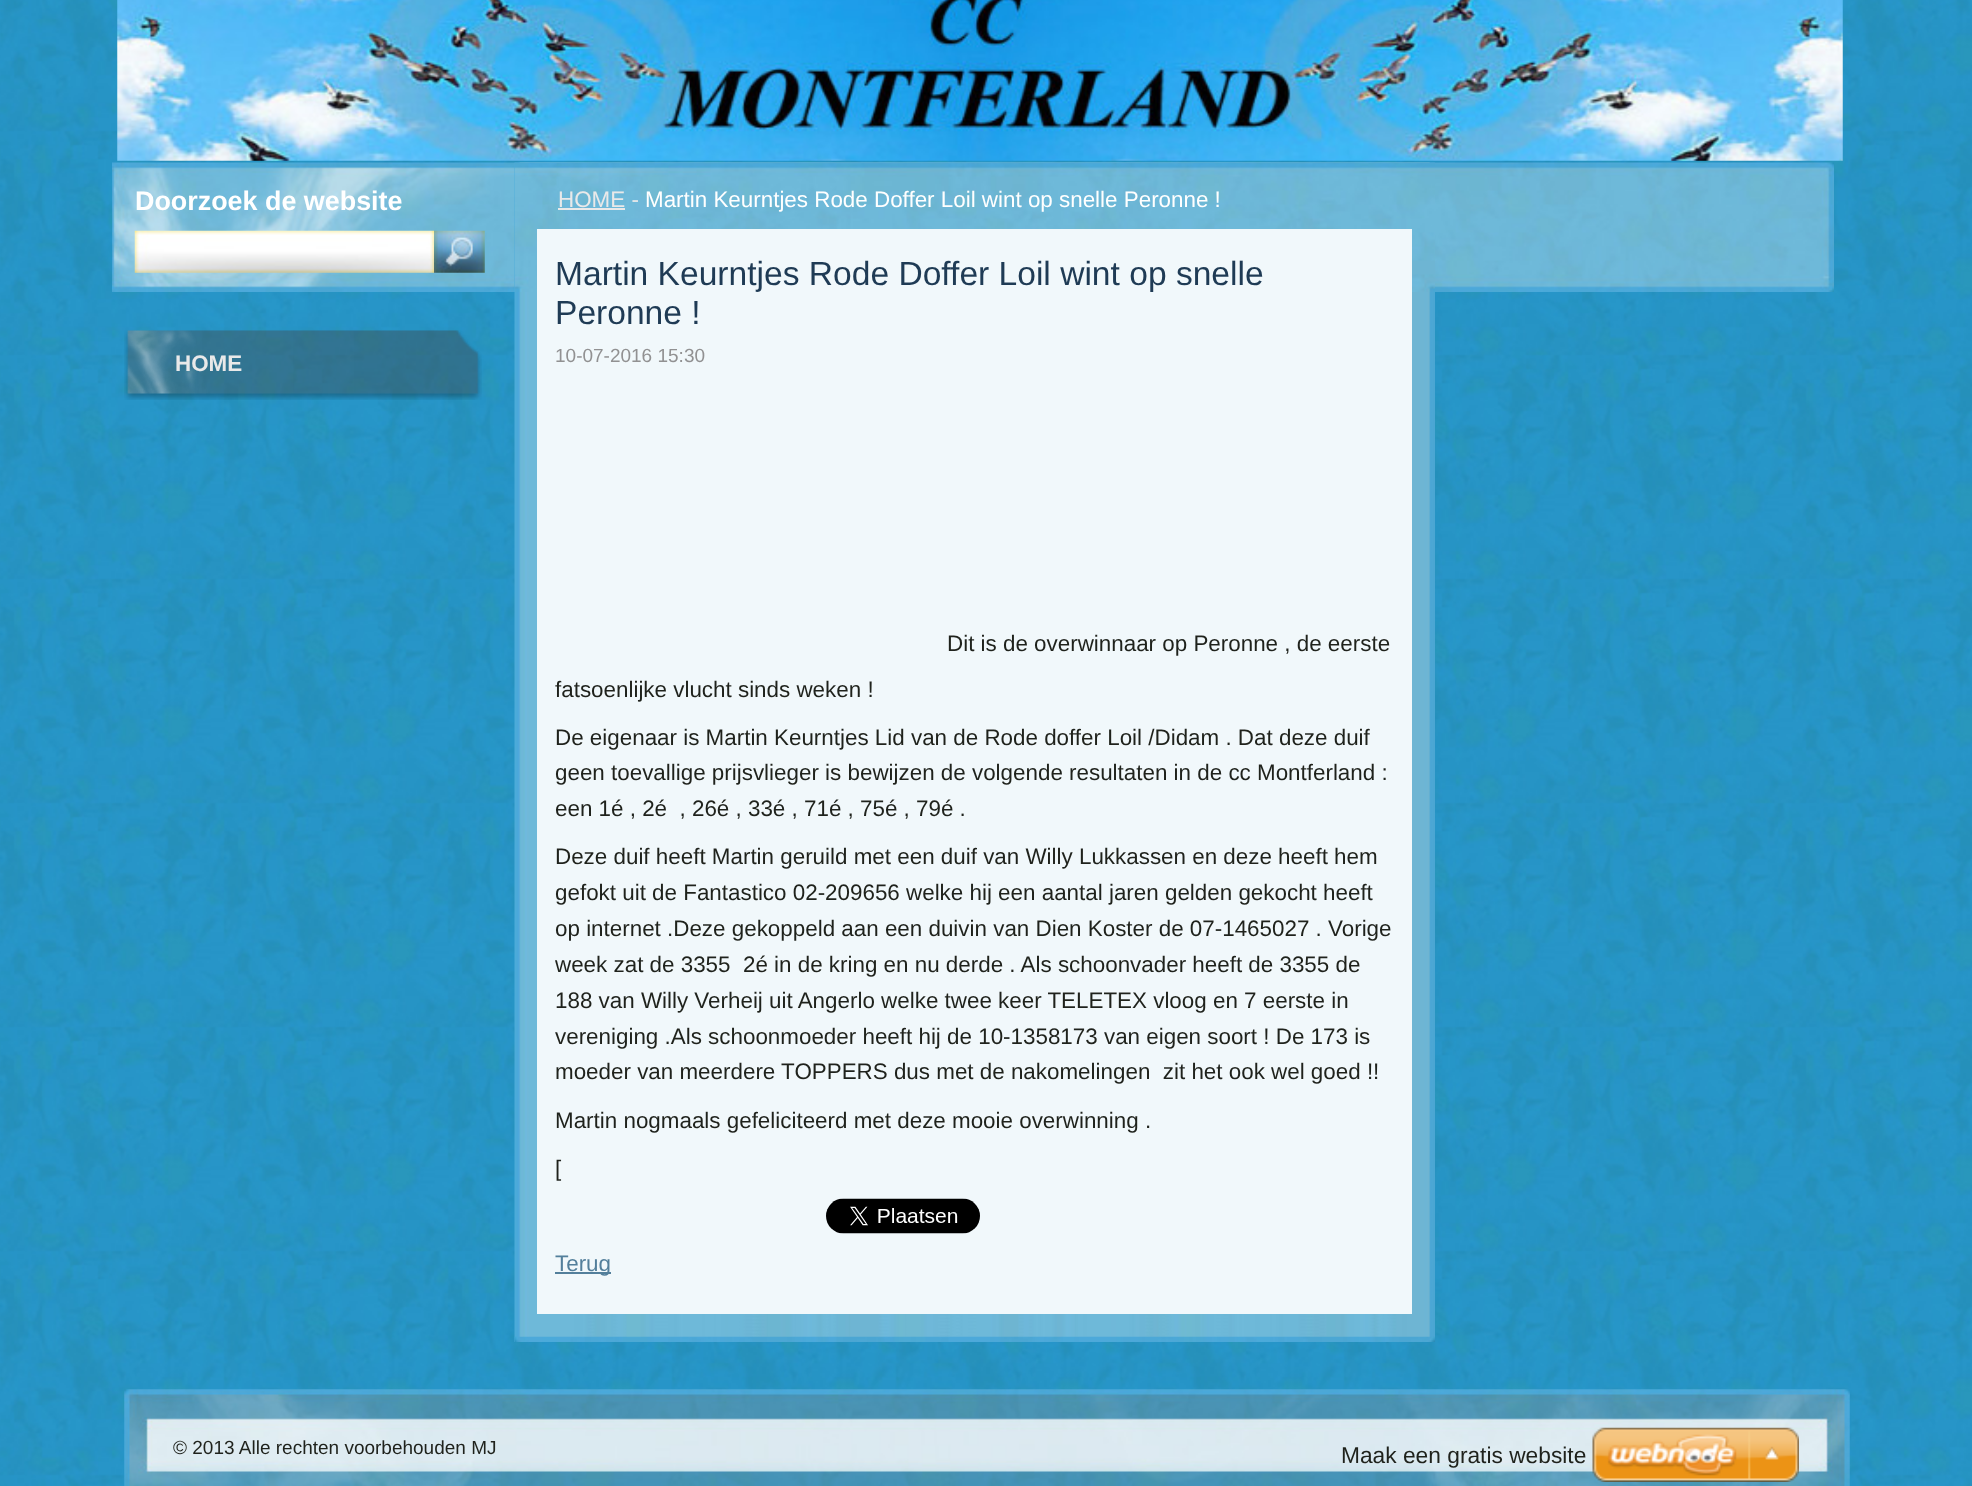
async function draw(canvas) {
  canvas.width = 1972
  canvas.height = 1486
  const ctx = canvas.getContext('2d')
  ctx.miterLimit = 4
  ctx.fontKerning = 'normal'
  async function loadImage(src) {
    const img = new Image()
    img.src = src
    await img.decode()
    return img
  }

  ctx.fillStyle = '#fff'
  ctx.fillRect(0, 0, 1972, 1486)
  ctx.drawImage(await loadImage('image0.png'), 0, 0, 1972, 1486)
  ctx.drawImage(await loadImage('image1.png'), 117, 0, 1726, 161)
  ctx.drawImage(await loadImage('image2.png'), 112, 162, 1722, 130)
  ctx.font = 'bold 26.9px Liberation Sans'
  ctx.fillText('Doorzoek de website', 135, 210)
  ctx.drawImage(await loadImage('image3.png'), 134, 230, 300, 43)
  ctx.drawImage(await loadImage('image4.png'), 434, 230, 51, 43)
  ctx.drawImage(await loadImage('image5.png'), 514, 162, 921, 1180)
  ctx.drawImage(await loadImage('image6.png'), 514, 163, 921, 129)
  ctx.font = '22.4px Liberation Sans'
  ctx.fillStyle = '#e9e9e9'
  ctx.fillText('HOME -', 558, 207)
  ctx.fillRect(558, 208, 67, 2)
  ctx.fillStyle = '#fff'
  ctx.fillText('Martin Keurntjes Rode Doffer Loil wint op snelle Peronne !', 645, 207)
  ctx.fillStyle = '#f1f8fb'
  ctx.fillRect(537, 229, 875, 1085)
  ctx.font = '33.6px Liberation Sans'
  ctx.fillStyle = '#1f3b55'
  ctx.fillText('Martin Keurntjes Rode Doffer Loil wint op snelle', 555, 285)
  ctx.fillText('Peronne !', 555, 324)
  ctx.font = '19px Liberation Sans'
  ctx.fillStyle = '#919192'
  ctx.fillText('10-07-2016 15:30', 555, 362)
  ctx.font = '22.4px Liberation Sans'
  ctx.fillStyle = '#1f221c'
  ctx.fillText('Dit is de overwinnaar op Peronne , de eerste', 947, 651)
  ctx.fillText('fatsoenlijke vlucht sinds weken !', 555, 697)
  ctx.fillText('De eigenaar is Martin Keurntjes Lid van de Rode doffer Loil /Didam . Dat deze duif', 555, 745)
  ctx.fillText('geen toevallige prijsvlieger is bewijzen de volgende resultaten in de cc Montferland :', 555, 780)
  ctx.fillText('een 1é , 2é  , 26é , 33é , 71é , 75é , 79é .', 555, 816)
  ctx.fillText('Deze duif heeft Martin geruild met een duif van Willy Lukkassen en deze heeft hem', 555, 864)
  ctx.fillText('gefokt uit de Fantastico 02-209656 welke hij een aantal jaren gelden gekocht heeft', 555, 900)
  ctx.fillText('op internet .Deze gekoppeld aan een duivin van Dien Koster de 07-1465027 . Vorige', 555, 936)
  ctx.fillText('week zat de 3355  2é in de kring en nu derde . Als schoonvader heeft de 3355 de', 555, 972)
  ctx.fillText('188 van Willy Verheij uit Angerlo welke twee keer TELETEX vloog en 7 eerste in', 555, 1008)
  ctx.fillText('vereniging .Als schoonmoeder heeft hij de 10-1358173 van eigen soort ! De 173 is', 555, 1044)
  ctx.fillText('moeder van meerdere TOPPERS dus met de nakomelingen  zit het ook wel goed !!', 555, 1079)
  ctx.fillText('Martin nogmaals gefeliciteerd met deze mooie overwinning .', 555, 1128)
  ctx.fillText('[', 555, 1176)
  ctx.drawImage(await loadImage('image7.png'), 826, 1198, 154, 36)
  ctx.fillStyle = '#537f9b'
  ctx.fillRect(555, 1272, 56, 2)
  ctx.fillText('Terug', 555, 1271)
  ctx.drawImage(await loadImage('image8.png'), 514, 1336, 921, 6)
  ctx.drawImage(await loadImage('image9.png'), 124, 330, 358, 70)
  ctx.font = 'bold 22.4px Liberation Sans'
  ctx.fillStyle = '#e9e9e9'
  ctx.fillText('HOME', 175, 371)
  ctx.drawImage(await loadImage('image10.png'), 124, 1389, 1726, 97)
  ctx.font = '19px Liberation Sans'
  ctx.fillStyle = '#1f221c'
  ctx.fillText('© 2013 Alle rechten voorbehouden MJ', 173, 1454)
  ctx.font = '22.75px Liberation Sans'
  ctx.fillText('Maak een gratis website', 1341, 1463)
  ctx.drawImage(await loadImage('image11.png'), 1592, 1427, 207, 55)
}

draw(document.querySelector('canvas'))
